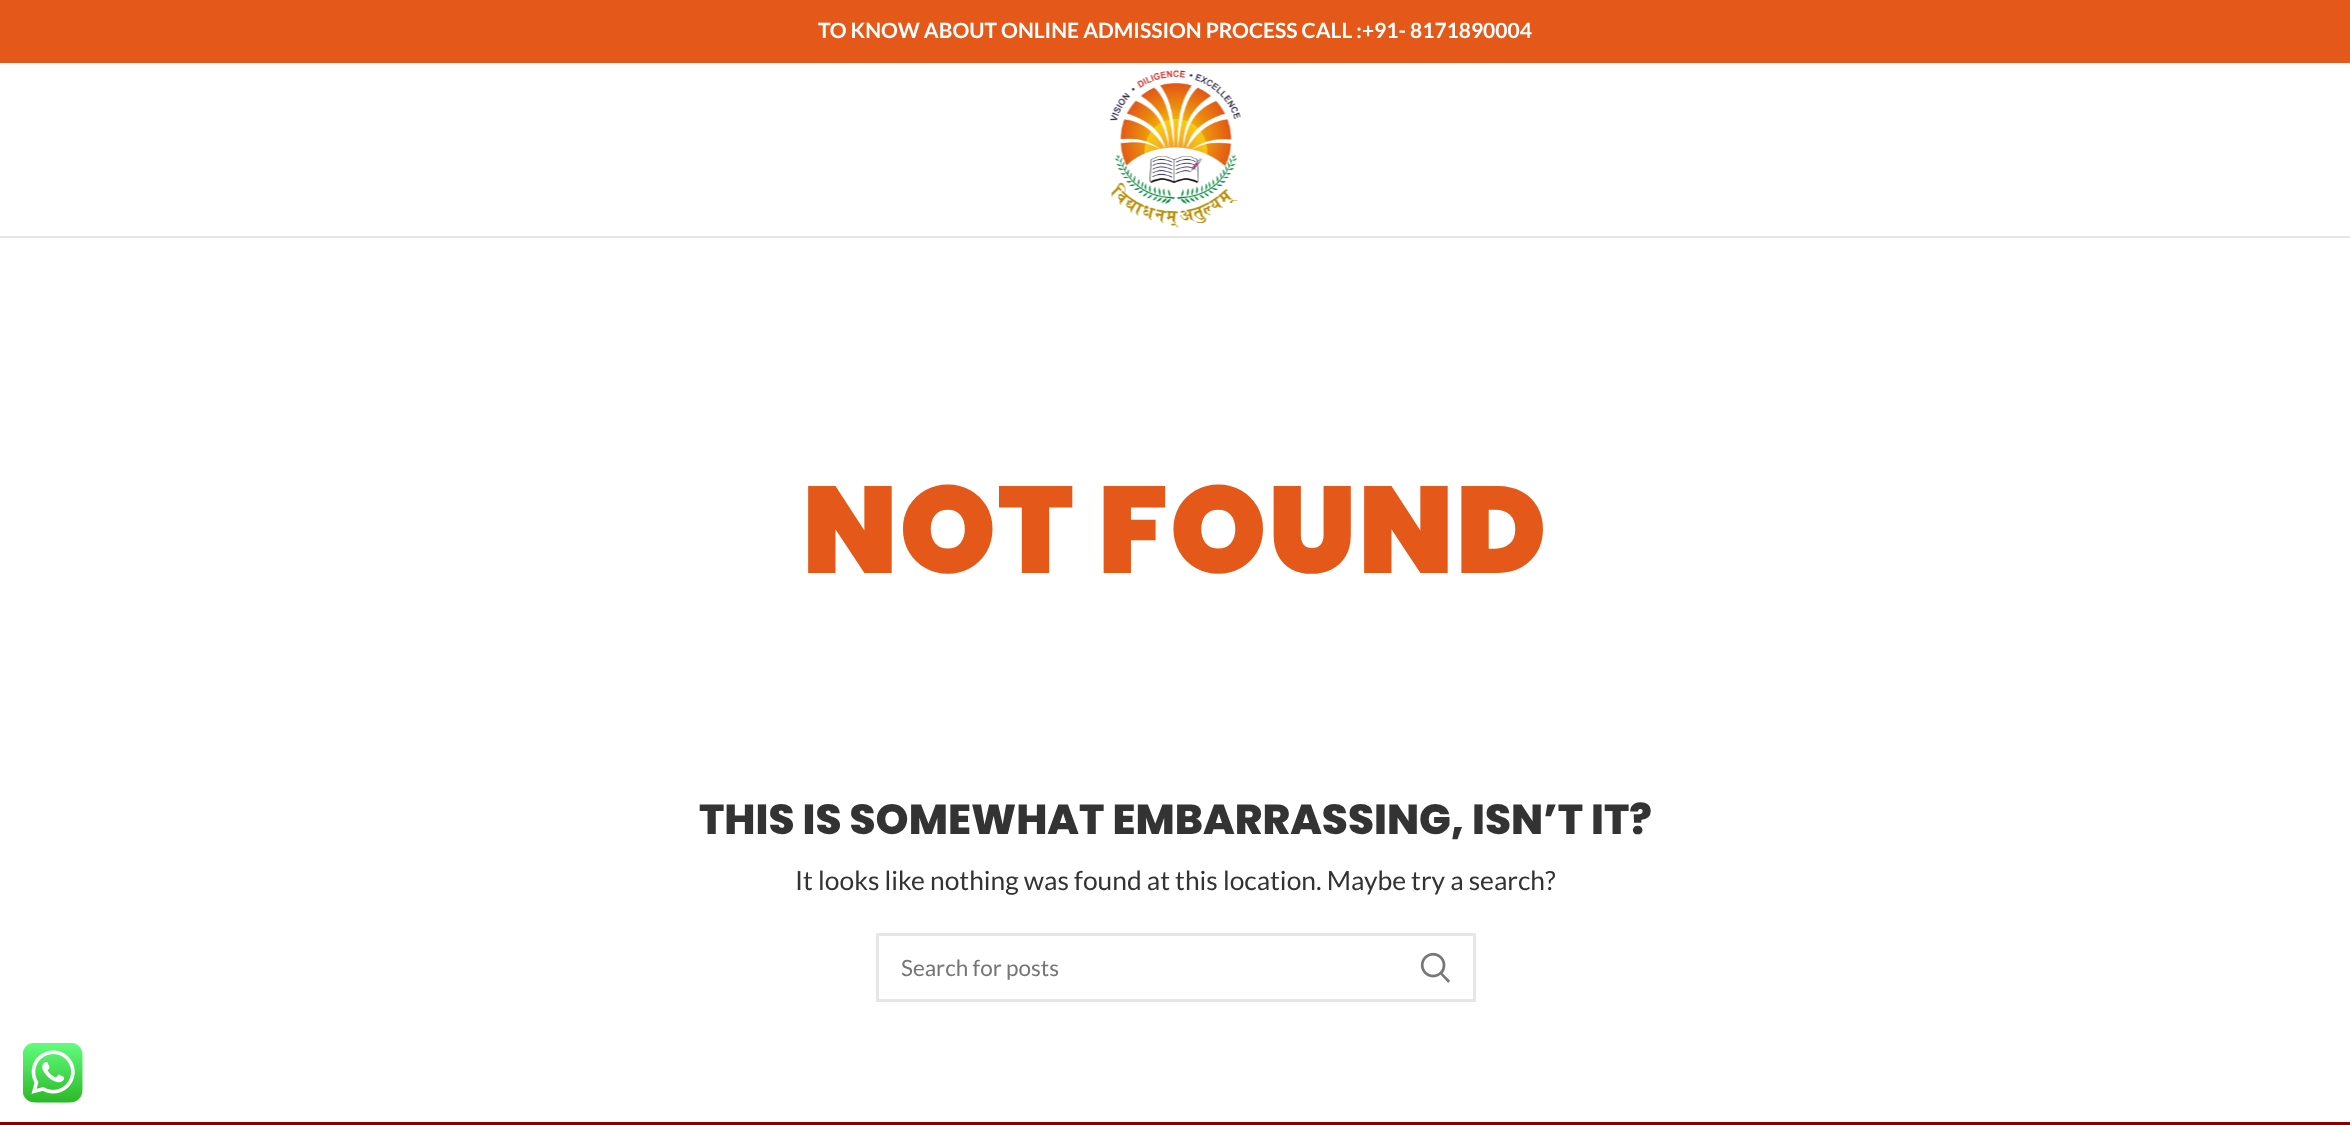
async function draw(canvas) {
  canvas.width = 2350
  canvas.height = 1125
  const ctx = canvas.getContext('2d')
  ctx.miterLimit = 4
  ctx.fontKerning = 'normal'
  async function loadImage(src) {
    const img = new Image()
    img.src = src
    await img.decode()
    return img
  }

  ctx.fillStyle = '#fff'
  ctx.fillRect(0, 0, 2350, 1125)
  ctx.fillStyle = '#e45919'
  ctx.fillRect(0, 0, 2350, 63)
  ctx.font = 'bold 21px Lato'
  ctx.fillStyle = '#fff'
  ctx.fillText('TO KNOW ABOUT ONLINE ADMISSION PROCESS CALL :+91- 8171890004', 818, 38)
  ctx.fillStyle = '#e6e6e6'
  ctx.fillRect(0, 236, 2350, 2)
  ctx.drawImage(await loadImage('image0.png'), 1109, 70, 132, 158)
  ctx.letterSpacing = '1.5px'
  ctx.font = '900 123px Poppins'
  ctx.fillStyle = '#e45919'
  ctx.fillText('NOT FOUND', 802, 573)
  ctx.letterSpacing = '0px'
  ctx.font = '800 42px Poppins'
  ctx.fillStyle = '#333'
  ctx.fillText('THIS IS SOMEWHAT EMBARRASSING, ISN’T IT?', 699, 834)
  ctx.font = '26.4px Lato'
  ctx.fillText('It looks like nothing was found at this location. Maybe try a search?', 795, 890)
  ctx.strokeStyle = '#e6e6e6'
  ctx.lineWidth = 3
  ctx.strokeRect(877.5, 934.5, 597, 66)
  ctx.font = '22.5px Lato'
  ctx.fillStyle = '#757575'
  ctx.fillText('Search for posts', 901, 976)
  ctx.drawImage(await loadImage('image1.png'), 1420, 952, 30, 31)
  ctx.fillStyle = '#800404'
  ctx.fillRect(0, 1122, 2350, 3)
  ctx.drawImage(await loadImage('image2.png'), 23, 1043, 60, 60)
}

draw(document.querySelector('canvas'))
